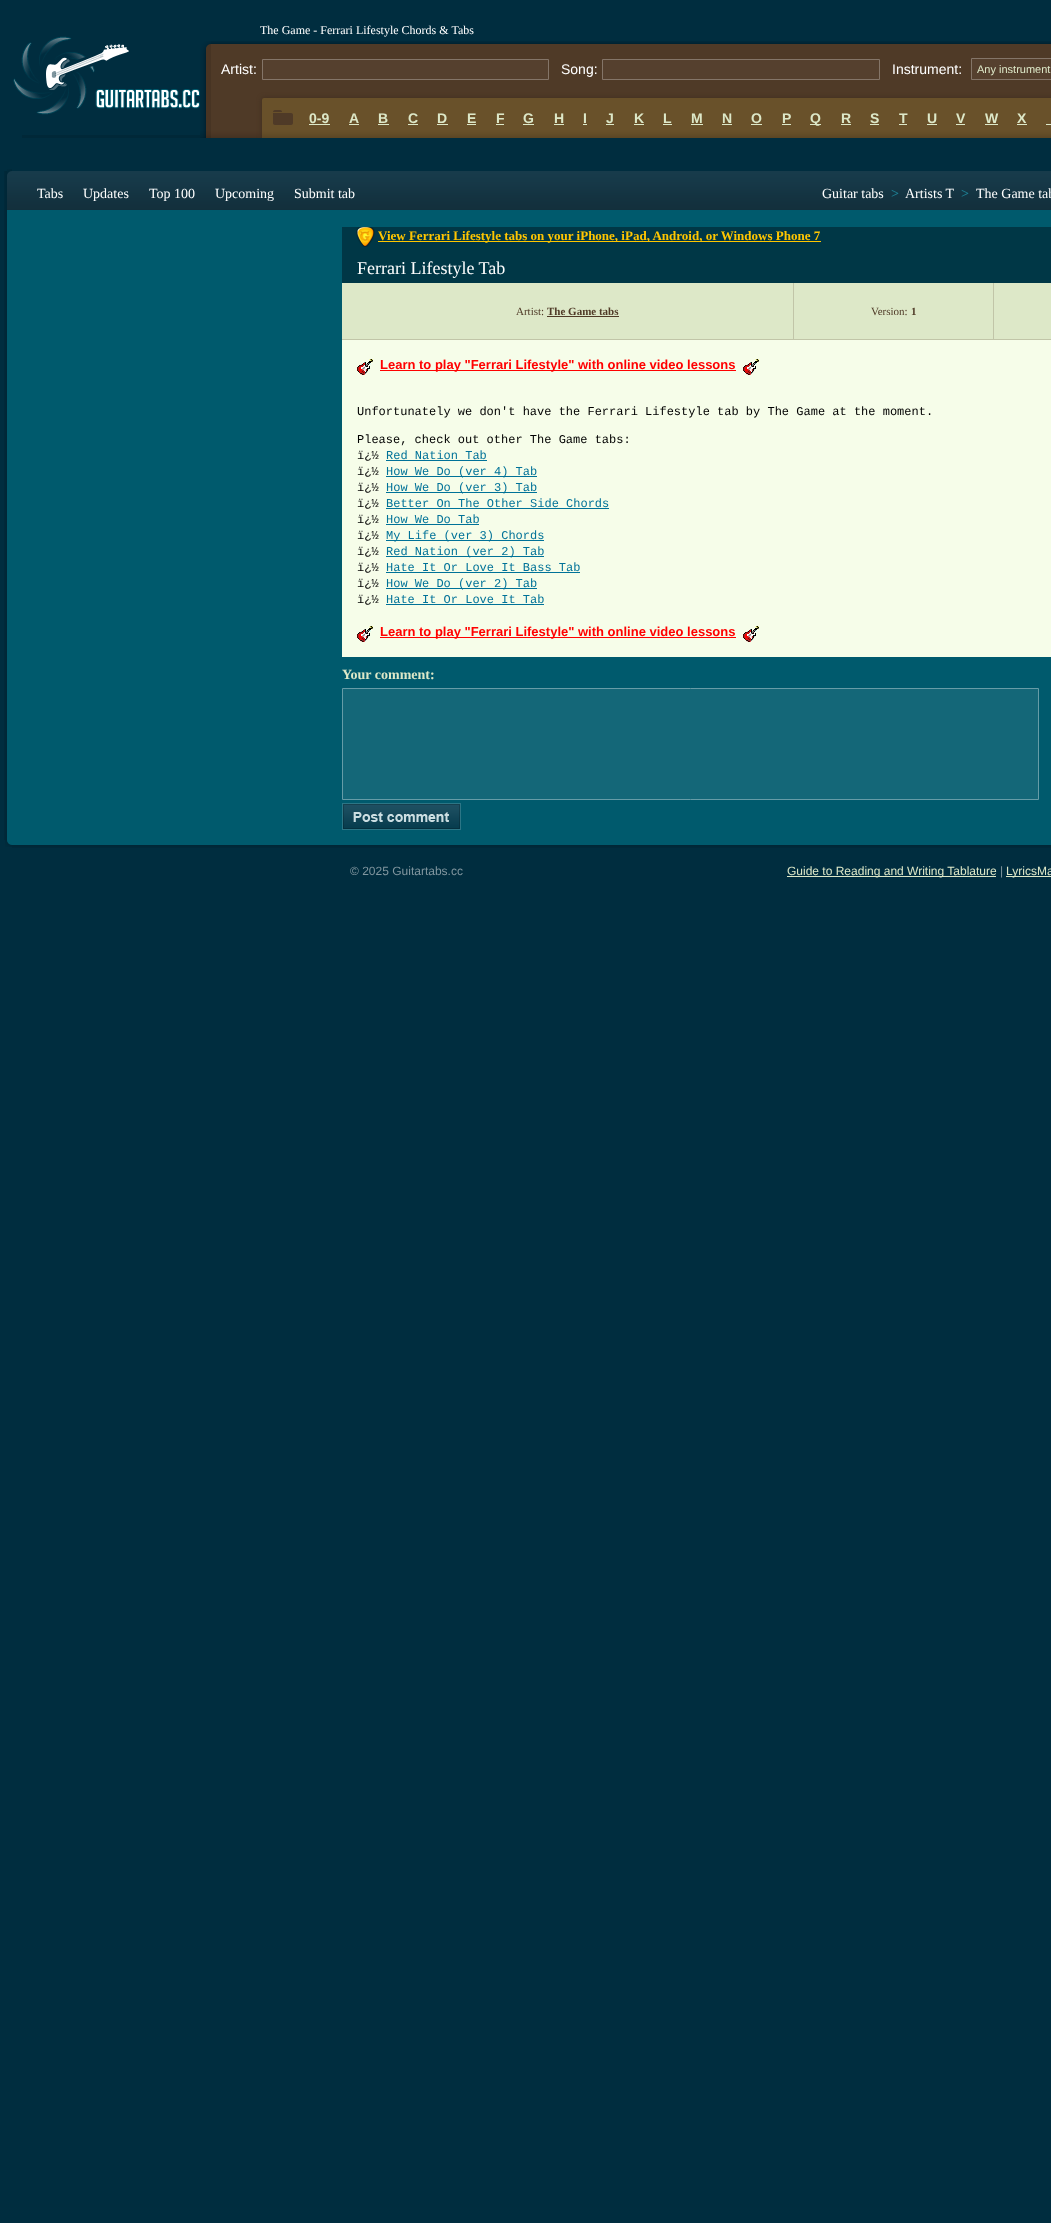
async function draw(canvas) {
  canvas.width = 1051
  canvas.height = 2223
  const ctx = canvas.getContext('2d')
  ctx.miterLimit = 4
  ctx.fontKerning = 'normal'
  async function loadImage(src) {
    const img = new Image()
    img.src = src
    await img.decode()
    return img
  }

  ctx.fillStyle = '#002d3f'
  ctx.fillRect(0, 0, 1051, 2223)
  ctx.fillStyle = '#002838'
  ctx.fillRect(22, 135, 178, 3)
  ctx.drawImage(await loadImage('image0.png'), 13, 36, 187, 79)
  ctx.font = '12px Liberation Serif'
  ctx.fillStyle = '#fff'
  ctx.fillText('The Game - Ferrari Lifestyle Chords & Tabs', 260, 34)
  ctx.drawImage(await loadImage('image1.png'), 211, 41, 840, 97)
  ctx.drawImage(await loadImage('image2.png'), 200, 41, 11, 97)
  ctx.font = '14px Liberation Sans'
  ctx.fillText('Artist:', 221, 74)
  ctx.fillStyle = '#55402e'
  ctx.beginPath()
  ctx.rect(262.5, 59.5, 286, 20)
  ctx.fill()
  ctx.strokeStyle = '#847568'
  ctx.stroke()
  ctx.fillStyle = '#fff'
  ctx.fillText('Song:', 561, 74)
  ctx.fillStyle = '#55402e'
  ctx.beginPath()
  ctx.rect(602.5, 59.5, 277, 20)
  ctx.fill()
  ctx.stroke()
  ctx.fillStyle = '#fff'
  ctx.fillText('Instrument:', 892, 74)
  ctx.fillStyle = '#55402e'
  ctx.beginPath()
  ctx.rect(971.5, 58.5, 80, 21)
  ctx.fill()
  ctx.stroke()
  ctx.font = '11px Liberation Sans'
  ctx.fillStyle = '#dde8c8'
  ctx.fillText('Any instrument', 977, 73)
  ctx.save()
  ctx.beginPath()
  ctx.rect(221, 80, 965, 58)
  ctx.clip()
  ctx.fillStyle = '#3f2e1f'
  ctx.filter = 'blur(2.5px)'
  ctx.beginPath()
  ctx.roundRect(262, 98, 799, 40, 2)
  ctx.fill()
  ctx.filter = 'none'
  ctx.restore()
  ctx.drawImage(await loadImage('image3.png'), 262, 98, 789, 40)
  ctx.drawImage(await loadImage('image4.png'), 273, 110, 20, 15)
  ctx.font = 'bold 14px Liberation Sans'
  ctx.fillText('0-9', 309, 123)
  ctx.fillRect(309, 124, 21, 1)
  ctx.fillText('A', 349, 123)
  ctx.fillRect(349, 124, 10, 1)
  ctx.fillText('B', 378, 123)
  ctx.fillRect(378, 124, 11, 1)
  ctx.fillText('C', 408, 123)
  ctx.fillRect(408, 124, 10, 1)
  ctx.fillText('D', 437, 123)
  ctx.fillRect(437, 124, 11, 1)
  ctx.fillText('E', 467, 123)
  ctx.fillRect(467, 124, 9, 1)
  ctx.fillText('F', 496, 123)
  ctx.fillRect(496, 124, 8, 1)
  ctx.fillText('G', 523, 123)
  ctx.fillRect(523, 124, 11, 1)
  ctx.fillText('H', 554, 123)
  ctx.fillRect(554, 124, 10, 1)
  ctx.fillText('I', 583, 123)
  ctx.fillRect(583, 124, 4, 1)
  ctx.fillText('J', 606, 123)
  ctx.fillRect(606, 124, 8, 1)
  ctx.fillText('K', 634, 123)
  ctx.fillRect(634, 124, 10, 1)
  ctx.fillText('L', 663, 123)
  ctx.fillRect(663, 124, 9, 1)
  ctx.fillText('M', 691, 123)
  ctx.fillRect(691, 124, 12, 1)
  ctx.fillText('N', 722, 123)
  ctx.fillRect(722, 124, 10, 1)
  ctx.fillText('O', 751, 123)
  ctx.fillRect(751, 124, 11, 1)
  ctx.fillText('P', 782, 123)
  ctx.fillRect(782, 124, 9, 1)
  ctx.fillRect(810, 124, 11, 1)
  ctx.fillText('Q', 810, 123)
  ctx.fillText('R', 841, 123)
  ctx.fillRect(841, 124, 10, 1)
  ctx.fillText('S', 870, 123)
  ctx.fillRect(870, 124, 9, 1)
  ctx.fillText('T', 899, 123)
  ctx.fillRect(899, 124, 8, 1)
  ctx.fillText('U', 927, 123)
  ctx.fillRect(927, 124, 10, 1)
  ctx.fillText('V', 956, 123)
  ctx.fillRect(956, 124, 9, 1)
  ctx.fillText('W', 985, 123)
  ctx.fillRect(985, 124, 13, 1)
  ctx.fillText('X', 1017, 123)
  ctx.fillRect(1017, 124, 10, 1)
  ctx.fillRect(1046, 124, 5, 1)
  ctx.drawImage(await loadImage('image5.png'), 4, 171, 8, 46)
  ctx.drawImage(await loadImage('image6.png'), 7, 169, 5, 41)
  ctx.fillStyle = '#005a6d'
  ctx.fillRect(12, 210, 1039, 630)
  ctx.drawImage(await loadImage('image7.png'), 12, 171, 1039, 39)
  ctx.font = '14px Liberation Serif'
  ctx.fillStyle = '#fff'
  ctx.fillText('Tabs', 37, 198)
  ctx.fillText('Updates', 83, 198)
  ctx.fillText('Top 100', 149, 198)
  ctx.fillText('Upcoming', 215, 198)
  ctx.fillText('Submit tab', 294, 198)
  ctx.fillText('Guitar tabs', 822, 198)
  ctx.font = 'bold 14px Liberation Serif'
  ctx.fillStyle = '#1e7c90'
  ctx.fillText('>', 891, 198)
  ctx.font = '14px Liberation Serif'
  ctx.fillStyle = '#fff'
  ctx.fillText('Artists T', 905, 198)
  ctx.font = 'bold 14px Liberation Serif'
  ctx.fillStyle = '#1e7c90'
  ctx.fillText('>', 961, 198)
  ctx.font = '14px Liberation Serif'
  ctx.fillStyle = '#fff'
  ctx.fillText('The Game tab', 976, 198)
  ctx.drawImage(await loadImage('image8.png'), 4, 217, 8, 623)
  ctx.fillStyle = '#003746'
  ctx.fillRect(342, 227, 709, 56)
  ctx.drawImage(await loadImage('image9.png'), 356, 227, 19, 20)
  ctx.fillStyle = '#ffc600'
  ctx.fillRect(378, 241, 443, 1)
  ctx.font = 'bold 13px Liberation Serif'
  ctx.fillText('View Ferrari Lifestyle tabs on your iPhone, iPad, Android, or Windows Phone 7', 378, 240)
  ctx.font = '18px Liberation Serif'
  ctx.fillStyle = '#fff'
  ctx.fillText('Ferrari Lifestyle Tab', 357, 274)
  ctx.fillStyle = '#dde8c8'
  ctx.fillRect(342, 283, 709, 56)
  ctx.fillStyle = '#c1c5a8'
  ctx.fillRect(793, 283, 1, 57)
  ctx.fillRect(342, 339, 452, 1)
  ctx.font = '11px Liberation Serif'
  ctx.fillStyle = '#4f3a27'
  ctx.fillText('Artist:', 516, 315)
  ctx.font = 'bold 11px Liberation Serif'
  ctx.fillText('The Game tabs', 547, 315)
  ctx.fillRect(547, 316, 72, 1)
  ctx.fillStyle = '#c1c5a8'
  ctx.fillRect(993, 283, 1, 57)
  ctx.fillRect(794, 339, 257, 1)
  ctx.font = '11px Liberation Serif'
  ctx.fillStyle = '#4f3a27'
  ctx.fillText('Version:', 871, 315)
  ctx.font = 'bold 11px Liberation Serif'
  ctx.fillText('1', 911, 315)
  ctx.fillStyle = '#f6fde9'
  ctx.fillRect(342, 340, 709, 317)
  ctx.drawImage(await loadImage('image10.png'), 357, 359, 16, 16)
  ctx.fillStyle = '#f00'
  ctx.fillRect(380, 370, 356, 1)
  ctx.font = 'bold 13px Liberation Sans'
  ctx.fillText('Learn to play "Ferrari Lifestyle" with online video lessons', 380, 369)
  ctx.drawImage(await loadImage('image10.png'), 743, 359, 16, 16)
  ctx.font = '12px Liberation Mono'
  ctx.fillStyle = '#000'
  ctx.fillText('Unfortunately we don\'t have the Ferrari Lifestyle tab by The Game at the moment.', 357, 415)
  ctx.fillText('Please, check out other The Game tabs:', 357, 443)
  ctx.fillText('ï¿½', 357, 459)
  ctx.fillStyle = '#007298'
  ctx.fillText('Red Nation Tab', 386, 459)
  ctx.fillRect(386, 460, 101, 1)
  ctx.fillStyle = '#000'
  ctx.fillText('ï¿½', 357, 475)
  ctx.fillStyle = '#007298'
  ctx.fillRect(386, 476, 151, 1)
  ctx.fillText('How We Do (ver 4) Tab', 386, 475)
  ctx.fillStyle = '#000'
  ctx.fillText('ï¿½', 357, 491)
  ctx.fillStyle = '#007298'
  ctx.fillRect(386, 492, 151, 1)
  ctx.fillText('How We Do (ver 3) Tab', 386, 491)
  ctx.fillStyle = '#000'
  ctx.fillText('ï¿½', 357, 507)
  ctx.fillStyle = '#007298'
  ctx.fillText('Better On The Other Side Chords', 386, 507)
  ctx.fillRect(386, 508, 223, 1)
  ctx.fillStyle = '#000'
  ctx.fillText('ï¿½', 357, 523)
  ctx.fillStyle = '#007298'
  ctx.fillText('How We Do Tab', 386, 523)
  ctx.fillRect(386, 524, 93, 1)
  ctx.fillStyle = '#000'
  ctx.fillText('ï¿½', 357, 539)
  ctx.fillStyle = '#007298'
  ctx.fillRect(386, 540, 158, 1)
  ctx.fillText('My Life (ver 3) Chords', 386, 539)
  ctx.fillStyle = '#000'
  ctx.fillText('ï¿½', 357, 555)
  ctx.fillStyle = '#007298'
  ctx.fillRect(386, 556, 158, 1)
  ctx.fillText('Red Nation (ver 2) Tab', 386, 555)
  ctx.fillStyle = '#000'
  ctx.fillText('ï¿½', 357, 571)
  ctx.fillStyle = '#007298'
  ctx.fillText('Hate It Or Love It Bass Tab', 386, 571)
  ctx.fillRect(386, 572, 194, 1)
  ctx.fillStyle = '#000'
  ctx.fillText('ï¿½', 357, 587)
  ctx.fillStyle = '#007298'
  ctx.fillRect(386, 588, 151, 1)
  ctx.fillText('How We Do (ver 2) Tab', 386, 587)
  ctx.fillStyle = '#000'
  ctx.fillText('ï¿½', 357, 603)
  ctx.fillStyle = '#007298'
  ctx.fillText('Hate It Or Love It Tab', 386, 603)
  ctx.fillRect(386, 604, 158, 1)
  ctx.drawImage(await loadImage('image10.png'), 357, 626, 16, 16)
  ctx.fillStyle = '#f00'
  ctx.fillRect(380, 637, 356, 1)
  ctx.font = 'bold 13px Liberation Sans'
  ctx.fillText('Learn to play "Ferrari Lifestyle" with online video lessons', 380, 636)
  ctx.drawImage(await loadImage('image10.png'), 743, 626, 16, 16)
  ctx.font = 'bold 14px Liberation Serif'
  ctx.fillStyle = '#dde8c8'
  ctx.fillText('Your comment:', 342, 679)
  ctx.fillStyle = '#146778'
  ctx.beginPath()
  ctx.rect(342.5, 688.5, 696, 111)
  ctx.fill()
  ctx.strokeStyle = '#669ca7'
  ctx.stroke()
  ctx.drawImage(await loadImage('image11.png'), 342, 803, 119, 27)
  ctx.drawImage(await loadImage('image12.png'), 5, 840, 7, 7)
  ctx.drawImage(await loadImage('image13.png'), 12, 840, 1039, 8)
  ctx.font = '12px Liberation Sans'
  ctx.fillStyle = '#80969f'
  ctx.fillText('© 2025 Guitartabs.cc', 350, 875)
  ctx.fillStyle = '#dde8c8'
  ctx.fillRect(787, 876, 209, 1)
  ctx.fillText('Guide to Reading and Writing Tablature', 787, 875)
  ctx.fillStyle = '#80969f'
  ctx.fillText('|', 1000, 875)
  ctx.fillStyle = '#dde8c8'
  ctx.fillRect(1006, 876, 45, 1)
  ctx.fillText('LyricsMa', 1006, 875)
}

draw(document.querySelector('canvas'))
